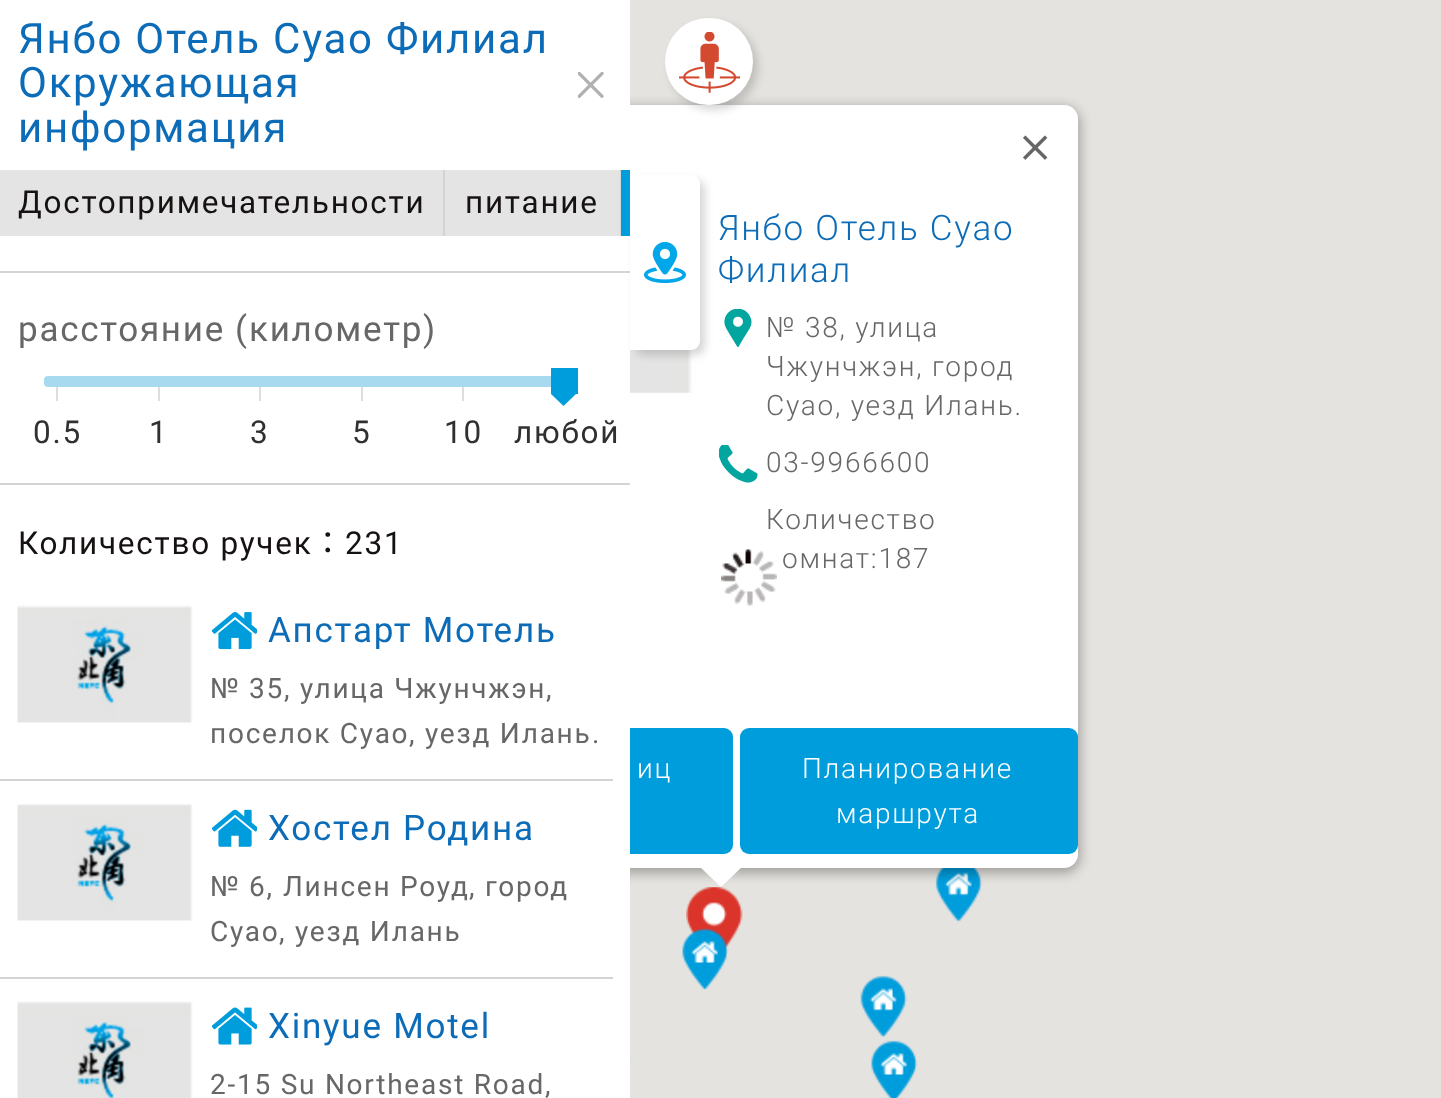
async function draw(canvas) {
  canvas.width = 1441
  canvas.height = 1098
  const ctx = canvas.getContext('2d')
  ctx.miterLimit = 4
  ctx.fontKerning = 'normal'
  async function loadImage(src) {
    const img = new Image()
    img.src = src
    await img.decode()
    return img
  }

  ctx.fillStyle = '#e5e3df'
  ctx.fillRect(0, 0, 1441, 1098)
  ctx.drawImage(await loadImage('image13.png'), 686, 887, 57, 63)
  ctx.drawImage(await loadImage('image14.png'), 935, 868, 47, 54)
  ctx.fillStyle = '#0000004d'
  ctx.filter = 'blur(6px)'
  ctx.beginPath()
  ctx.roundRect(364, 107, 716, 766, 16)
  ctx.fill()
  ctx.filter = 'none'
  ctx.fillStyle = '#fff'
  ctx.beginPath()
  ctx.roundRect(366, 105, 712, 763, 14)
  ctx.fill()
  ctx.fillStyle = '#009ddc'
  ctx.beginPath()
  ctx.roundRect(394, 728, 339, 126, 9)
  ctx.fill()
  ctx.fillStyle = '#fff'
  ctx.fillRect(0, 0, 630, 1098)
  ctx.letterSpacing = '1.75px'
  ctx.font = '42px Roboto'
  ctx.fillStyle = '#0c6cb7'
  ctx.fillText('Янбо Отель Суао Филиал', 18, 53)
  ctx.fillText('Окружающая', 18, 97)
  ctx.fillText('информация', 18, 142)
  ctx.drawImage(await loadImage('image0.png'), 578, 72, 26, 26)
  ctx.drawImage(await loadImage('image10.png'), 630, 349, 62, 44)
  ctx.fillStyle = '#00000029'
  ctx.filter = 'blur(4.5px)'
  ctx.beginPath()
  ctx.roundRect(635, 180, 70, 175, 9)
  ctx.fill()
  ctx.filter = 'none'
  ctx.fillStyle = '#d3d3d3'
  ctx.fillRect(0, 271, 630, 2)
  ctx.fillStyle = '#e4e4e4'
  ctx.fillRect(0, 170, 443, 66)
  ctx.fillStyle = '#d3d3d3'
  ctx.fillRect(443, 170, 2, 66)
  ctx.font = '31.5px Roboto'
  ctx.fillStyle = '#161211'
  ctx.fillText('Достопримечательности', 18, 213)
  ctx.fillStyle = '#e4e4e4'
  ctx.fillRect(445, 170, 175, 66)
  ctx.fillStyle = '#d3d3d3'
  ctx.fillRect(620, 170, 1, 66)
  ctx.fillStyle = '#161211'
  ctx.fillText('питание', 465, 213)
  ctx.fillStyle = '#009ddc'
  ctx.fillRect(621, 170, 9, 66)
  ctx.fillStyle = '#d3d3d3'
  ctx.fillRect(0, 483, 630, 2)
  ctx.font = '35px Roboto'
  ctx.fillStyle = '#676767'
  ctx.fillText('расстояние', 18, 341)
  ctx.font = '35px "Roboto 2"'
  ctx.fillText('(', 235, 341)
  ctx.font = '35px Roboto'
  ctx.fillText('километр', 249, 341)
  ctx.font = '35px "Roboto 2"'
  ctx.fillText(')', 423, 341)
  ctx.fillStyle = '#a7daee'
  ctx.beginPath()
  ctx.roundRect(44, 376, 521, 11, [4, 0, 0, 4])
  ctx.fill()
  ctx.fillStyle = '#009ddc'
  ctx.fillRect(551, 368, 27, 26)
  ctx.beginPath()
  ctx.moveTo(551, 394)
  ctx.lineTo(576, 394)
  ctx.lineTo(563.5, 406)
  ctx.closePath()
  ctx.fill()
  ctx.fillStyle = '#dedede'
  ctx.fillRect(56, 387, 2, 14)
  ctx.fillRect(158, 387, 2, 14)
  ctx.fillRect(259, 387, 2, 14)
  ctx.fillRect(361, 387, 2, 14)
  ctx.fillRect(462, 387, 2, 14)
  ctx.font = '31.5px "Roboto 2"'
  ctx.fillStyle = '#303030'
  ctx.fillText('0.5', 33, 443)
  ctx.fillText('1', 149, 443)
  ctx.fillText('3', 250, 443)
  ctx.fillText('5', 352, 443)
  ctx.fillText('10', 444, 443)
  ctx.font = '31.5px Roboto'
  ctx.fillText('любой', 514, 443)
  ctx.fillStyle = '#161211'
  ctx.fillText('Количество ручек', 18, 554)
  ctx.font = '31.5px Noto Sans TC'
  ctx.fillText('：', 312, 554)
  ctx.font = '31.5px "Roboto 2"'
  ctx.fillText('231', 345, 554)
  ctx.fillStyle = '#d3d3d3'
  ctx.fillRect(0, 779, 613, 2)
  ctx.drawImage(await loadImage('image1.png'), 17, 605, 176, 118)
  ctx.drawImage(await loadImage('image2.png'), 212, 612, 45, 38)
  ctx.font = '35px Roboto'
  ctx.fillStyle = '#0c6cb7'
  ctx.fillText('Апстарт Мотель', 268, 642)
  ctx.font = '28px Roboto'
  ctx.fillStyle = '#676767'
  ctx.fillText('№', 210, 698)
  ctx.font = '28px "Roboto 2"'
  ctx.fillText('35,', 249, 698)
  ctx.font = '28px Roboto'
  ctx.fillText('улица Чжунчжэн', 300, 698)
  ctx.font = '28px "Roboto 2"'
  ctx.fillText(',', 546, 698)
  ctx.font = '28px Roboto'
  ctx.fillText('поселок Суао', 210, 743)
  ctx.font = '28px "Roboto 2"'
  ctx.fillText(',', 409, 743)
  ctx.font = '28px Roboto'
  ctx.fillText('уезд Илань', 425, 743)
  ctx.font = '28px "Roboto 2"'
  ctx.fillText('.', 592, 743)
  ctx.fillStyle = '#d3d3d3'
  ctx.fillRect(0, 977, 613, 2)
  ctx.drawImage(await loadImage('image3.png'), 17, 804, 176, 117)
  ctx.drawImage(await loadImage('image4.png'), 212, 809, 45, 38)
  ctx.font = '35px Roboto'
  ctx.fillStyle = '#0c6cb7'
  ctx.fillText('Хостел Родина', 268, 840)
  ctx.font = '28px Roboto'
  ctx.fillStyle = '#676767'
  ctx.fillText('№', 210, 896)
  ctx.font = '28px "Roboto 2"'
  ctx.fillText('6,', 249, 896)
  ctx.font = '28px Roboto'
  ctx.fillText('Линсен Роуд', 283, 896)
  ctx.font = '28px "Roboto 2"'
  ctx.fillText(',', 469, 896)
  ctx.font = '28px Roboto'
  ctx.fillText('город', 485, 896)
  ctx.fillText('Суао', 210, 941)
  ctx.font = '28px "Roboto 2"'
  ctx.fillText(',', 279, 941)
  ctx.font = '28px Roboto'
  ctx.fillText('уезд Илань', 295, 941)
  ctx.drawImage(await loadImage('image5.png'), 17, 1001, 176, 97)
  ctx.drawImage(await loadImage('image6.png'), 212, 1007, 45, 38)
  ctx.font = '35px "Roboto 2"'
  ctx.fillStyle = '#0c6cb7'
  ctx.fillText('Xinyue Motel', 268, 1038)
  ctx.font = '28px "Roboto 2"'
  ctx.fillStyle = '#676767'
  ctx.fillText('2-15 Su Northeast Road,', 210, 1094)
  ctx.fillStyle = '#fff'
  ctx.beginPath()
  ctx.roundRect(630, 175, 70, 175, [0, 9, 9, 0])
  ctx.fill()
  ctx.drawImage(await loadImage('image7.png'), 644, 242, 42, 42)
  ctx.fillStyle = '#00000029'
  ctx.filter = 'blur(4.5px)'
  ctx.beginPath()
  ctx.roundRect(670, 23, 88, 87, 43.5)
  ctx.fill()
  ctx.filter = 'none'
  ctx.fillStyle = '#fff'
  ctx.beginPath()
  ctx.roundRect(665, 18, 88, 87, 43.5)
  ctx.fill()
  ctx.drawImage(await loadImage('image8.png'), 679, 32, 61, 61)
  ctx.drawImage(await loadImage('image9.png'), 1023, 135, 25, 25)
  ctx.font = '300 35px Roboto'
  ctx.fillStyle = '#0c6cb7'
  ctx.fillText('Янбо Отель Суао', 718, 240)
  ctx.fillText('Филиал', 718, 282)
  ctx.drawImage(await loadImage('image11.png'), 724, 309, 28, 38)
  ctx.font = '300 28px Roboto'
  ctx.fillStyle = '#676767'
  ctx.fillText('№ 38, улица', 766, 337)
  ctx.fillText('Чжунчжэн, город', 766, 376)
  ctx.fillText('Суао, уезд Илань.', 766, 415)
  ctx.drawImage(await loadImage('image12.png'), 719, 445, 39, 38)
  ctx.fillText('03-9966600', 766, 472)
  ctx.fillText('Количество', 766, 529)
  ctx.fillText('омнат:187', 782, 568)
  ctx.fillStyle = '#fff'
  ctx.fillText('иц', 637, 778)
  ctx.fillStyle = '#009ddc'
  ctx.beginPath()
  ctx.roundRect(740, 728, 338, 126, 9)
  ctx.fill()
  ctx.fillStyle = '#fff'
  ctx.fillText('Планирование', 802, 778)
  ctx.fillText('маршрута', 836, 823)
  ctx.beginPath()
  ctx.moveTo(700, 867)
  ctx.lineTo(700, 866)
  ctx.lineTo(743, 866)
  ctx.lineTo(721, 887)
  ctx.closePath()
  ctx.fill()
  ctx.drawImage(await loadImage('image15.png'), 682, 928, 47, 62)
  ctx.drawImage(await loadImage('image16.png'), 860, 975, 47, 63)
  ctx.drawImage(await loadImage('image17.png'), 630, 1057, 1, 6)
  ctx.drawImage(await loadImage('image18.png'), 871, 1040, 47, 58)
  ctx.drawImage(await loadImage('image19.png'), 721, 549, 56, 57)
}

draw(document.querySelector('canvas'))
